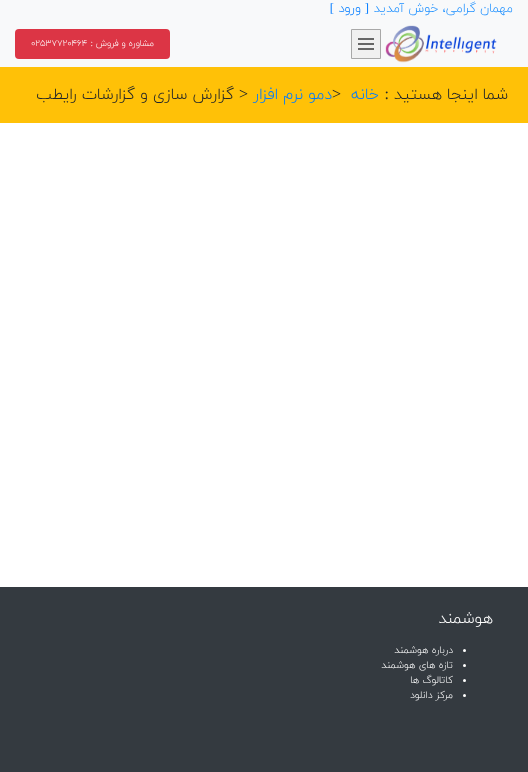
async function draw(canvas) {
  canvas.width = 528
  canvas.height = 772
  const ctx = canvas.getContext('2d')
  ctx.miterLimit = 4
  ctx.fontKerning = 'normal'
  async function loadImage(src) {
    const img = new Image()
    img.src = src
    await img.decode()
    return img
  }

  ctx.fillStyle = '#fff'
  ctx.fillRect(0, 0, 528, 772)
  ctx.fillStyle = '#f8f9fa'
  ctx.fillRect(0, 0, 528, 67)
  ctx.direction = 'rtl'
  ctx.font = '300 12.75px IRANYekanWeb'
  ctx.fillStyle = '#1e90ff'
  ctx.fillText('مهمان گرامی، خوش آمدید', 513, 12)
  ctx.font = '12.75px Liberation Serif'
  ctx.fillStyle = '#007bff'
  ctx.fillText('[', 369, 12)
  ctx.font = '300 12.75px IRANYekanWeb'
  ctx.fillText('ورود', 361, 12)
  ctx.font = '12.75px Liberation Serif'
  ctx.fillText(']', 334, 12)
  ctx.drawImage(await loadImage('image0.png'), 385, 25, 112, 38)
  ctx.fillStyle = '#f0f0f0'
  ctx.beginPath()
  ctx.rect(351.5, 29.5, 29, 29)
  ctx.fill()
  ctx.strokeStyle = '#a8a8a8'
  ctx.stroke()
  ctx.fillStyle = '#666'
  ctx.fillRect(358, 43, 16, 2)
  ctx.fillRect(358, 38, 16, 2)
  ctx.fillRect(358, 48, 16, 2)
  ctx.fillStyle = '#dc3545'
  ctx.beginPath()
  ctx.roundRect(15, 29, 155, 30, 4)
  ctx.fill()
  ctx.font = '300 9px IRANYekanWeb'
  ctx.fillStyle = '#fff'
  ctx.fillText('مشاوره و فروش', 154, 46)
  ctx.font = '9px Liberation Serif'
  ctx.fillText(':', 93, 46)
  ctx.direction = 'ltr'
  ctx.font = '300 9px IRANYekanWeb'
  ctx.fillText('۰۲۵۳۷۷۲۰۴۶۴', 31, 46)
  ctx.fillStyle = '#ffc107'
  ctx.fillRect(0, 67, 528, 56)
  ctx.direction = 'rtl'
  ctx.font = '300 16px IRANYekanWeb'
  ctx.fillStyle = '#212529'
  ctx.fillText('شما اینجا هستید', 508, 99)
  ctx.font = '16px Liberation Serif'
  ctx.fillText(':', 389, 99)
  ctx.font = '300 16px IRANYekanWeb'
  ctx.fillStyle = '#007bff'
  ctx.fillText('خانه', 379, 99)
  ctx.direction = 'ltr'
  ctx.font = '16px Liberation Serif'
  ctx.fillStyle = '#212529'
  ctx.fillText('>', 332, 99)
  ctx.direction = 'rtl'
  ctx.font = '300 16px IRANYekanWeb'
  ctx.fillStyle = '#007bff'
  ctx.fillText('دمو نرم افزار', 332, 99)
  ctx.direction = 'ltr'
  ctx.font = '16px Liberation Serif'
  ctx.fillStyle = '#212529'
  ctx.fillText('>', 239, 99)
  ctx.direction = 'rtl'
  ctx.font = '300 16px IRANYekanWeb'
  ctx.fillText('گزارش سازی و گزارشات رایطب', 234, 99)
  ctx.fillStyle = '#343a40'
  ctx.fillRect(0, 587, 528, 185)
  ctx.fillStyle = '#fff'
  ctx.fillText('هوشمند', 493, 623)
  ctx.beginPath()
  ctx.arc(464.5, 650.5, 1.5, 0, 2 * Math.PI)
  ctx.fill()
  ctx.font = '300 10px IRANYekanWeb'
  ctx.fillText('درباره هوشمند', 453, 653)
  ctx.beginPath()
  ctx.arc(464.5, 665.5, 1.5, 0, 2 * Math.PI)
  ctx.fill()
  ctx.fillText('تازه های هوشمند', 453, 668)
  ctx.beginPath()
  ctx.arc(464.5, 680.5, 1.5, 0, 2 * Math.PI)
  ctx.fill()
  ctx.fillText('کاتالوگ ها', 453, 683)
  ctx.beginPath()
  ctx.arc(464.5, 695.5, 1.5, 0, 2 * Math.PI)
  ctx.fill()
  ctx.fillText('مرکز دانلود', 453, 698)
}

draw(document.querySelector('canvas'))
